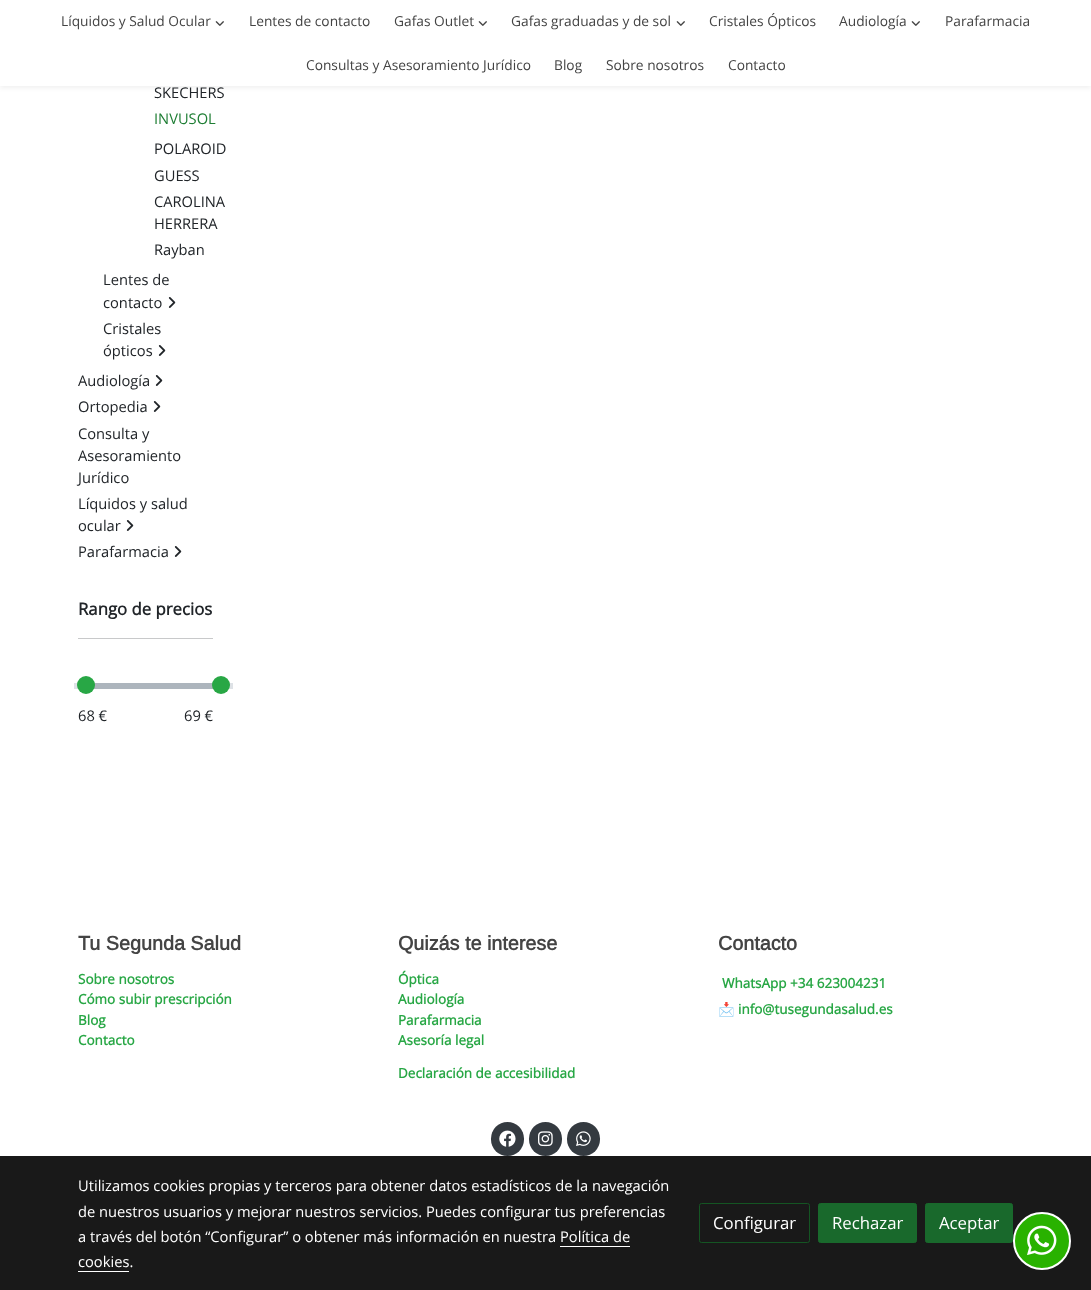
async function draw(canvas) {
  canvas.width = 1091
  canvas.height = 1290
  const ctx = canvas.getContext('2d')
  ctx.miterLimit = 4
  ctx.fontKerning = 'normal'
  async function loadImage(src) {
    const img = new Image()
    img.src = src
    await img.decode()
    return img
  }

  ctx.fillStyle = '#fff'
  ctx.fillRect(0, 0, 1091, 1290)
  ctx.fillStyle = '#191919'
  ctx.fillRect(0, 1156, 1091, 134)
  ctx.fillStyle = '#0000000f'
  ctx.filter = 'blur(2.5px)'
  ctx.beginPath()
  ctx.rect(0, 2, 1091, 86)
  ctx.fill()
  ctx.filter = 'none'
  ctx.fillStyle = '#fff'
  ctx.fillRect(0, 0, 1091, 86)
  ctx.font = '13.75px Open Sans'
  ctx.fillStyle = '#444'
  ctx.fillText('Líquidos y Salud Ocular', 61, 26)
  ctx.drawImage(await loadImage('image0.png'), 215, 21, 9, 5)
  ctx.fillText('Lentes de contacto', 249, 26)
  ctx.fillText('Gafas Outlet', 394, 26)
  ctx.drawImage(await loadImage('image0.png'), 478, 21, 9, 5)
  ctx.fillText('Gafas graduadas y de sol', 511, 26)
  ctx.drawImage(await loadImage('image0.png'), 676, 21, 9, 5)
  ctx.fillText('Cristales Ópticos', 709, 26)
  ctx.fillText('Audiología', 839, 26)
  ctx.drawImage(await loadImage('image0.png'), 911, 21, 9, 5)
  ctx.fillText('Parafarmacia', 945, 26)
  ctx.fillText('Consultas y Asesoramiento Jurídico', 306, 70)
  ctx.fillText('Blog', 554, 70)
  ctx.fillText('Sobre nosotros', 606, 70)
  ctx.fillText('Contacto', 728, 70)
  ctx.font = '14.7px Open Sans'
  ctx.fillStyle = '#212529'
  ctx.fillText('SKECHERS', 154, 98)
  ctx.fillStyle = '#1e7e34'
  ctx.fillText('INVUSOL', 154, 124)
  ctx.fillStyle = '#212529'
  ctx.fillText('POLAROID', 154, 154)
  ctx.fillText('GUESS', 154, 181)
  ctx.fillText('CAROLINA', 154, 207)
  ctx.fillText('HERRERA', 154, 229)
  ctx.fillText('Rayban', 154, 255)
  ctx.fillText('Lentes de', 103, 285)
  ctx.fillText('contacto', 103, 308)
  ctx.drawImage(await loadImage('image1.png'), 168, 297, 8, 11)
  ctx.fillText('Cristales', 103, 334)
  ctx.fillText('ópticos', 103, 356)
  ctx.drawImage(await loadImage('image1.png'), 158, 345, 8, 11)
  ctx.fillText('Audiología', 78, 386)
  ctx.drawImage(await loadImage('image1.png'), 155, 375, 8, 11)
  ctx.fillText('Ortopedia', 78, 412)
  ctx.drawImage(await loadImage('image1.png'), 153, 401, 8, 11)
  ctx.fillText('Consulta y', 78, 439)
  ctx.fillText('Asesoramiento', 78, 461)
  ctx.fillText('Jurídico', 78, 483)
  ctx.fillText('Líquidos y salud', 78, 509)
  ctx.fillText('ocular', 78, 531)
  ctx.drawImage(await loadImage('image1.png'), 126, 520, 8, 11)
  ctx.fillText('Parafarmacia', 78, 557)
  ctx.drawImage(await loadImage('image1.png'), 174, 546, 8, 11)
  ctx.font = 'bold 16.75px Open Sans'
  ctx.fillText('Rango de precios', 78, 615)
  ctx.fillStyle = '#c8c9ca'
  ctx.fillRect(78, 638, 135, 1)
  ctx.fillStyle = '#dee2e6'
  ctx.fillRect(74, 683, 159, 6)
  ctx.fillStyle = '#adb5bd'
  ctx.fillRect(86, 683, 135, 6)
  ctx.fillStyle = '#28a745'
  ctx.beginPath()
  ctx.arc(86, 685, 9, 0, 2 * Math.PI)
  ctx.fill()
  ctx.beginPath()
  ctx.arc(221, 685, 9, 0, 2 * Math.PI)
  ctx.fill()
  ctx.font = '14.7px Open Sans'
  ctx.fillStyle = '#212529'
  ctx.fillText('68 €', 78, 721)
  ctx.fillText('69 €', 184, 721)
  ctx.font = 'bold 19.75px Arimo'
  ctx.fillStyle = '#444'
  ctx.fillText('Tu Segunda Salud', 78, 950)
  ctx.font = 'bold 13.5px Open Sans'
  ctx.fillStyle = '#28a745'
  ctx.fillText('Sobre nosotros', 78, 984)
  ctx.fillText('Cómo subir prescripción', 78, 1004)
  ctx.fillText('Blog', 78, 1025)
  ctx.fillText('Contacto', 78, 1045)
  ctx.font = 'bold 19.75px Arimo'
  ctx.fillStyle = '#444'
  ctx.fillText('Quizás te interese', 398, 950)
  ctx.font = 'bold 13.5px Open Sans'
  ctx.fillStyle = '#28a745'
  ctx.fillText('Óptica', 398, 984)
  ctx.fillText('Audiología', 398, 1004)
  ctx.fillText('Parafarmacia', 398, 1025)
  ctx.fillText('Asesoría legal', 398, 1045)
  ctx.fillText('Declaración de accesibilidad', 398, 1078)
  ctx.font = 'bold 19.75px Arimo'
  ctx.fillStyle = '#444'
  ctx.fillText('Contacto', 718, 950)
  ctx.font = 'bold 13.5px Open Sans'
  ctx.fillStyle = '#28a745'
  ctx.fillText('WhatsApp +34 623004231', 722, 988)
  ctx.font = '13.5px Noto Color Emoji'
  ctx.fillText('📩', 718, 1014)
  ctx.font = 'bold 13.5px Open Sans'
  ctx.fillText('info@tusegundasalud.es', 738, 1014)
  ctx.fillStyle = '#343a40'
  ctx.beginPath()
  ctx.roundRect(491, 1122, 33, 34, 16.5)
  ctx.fill()
  ctx.drawImage(await loadImage('image2.png'), 499, 1130, 17, 17)
  ctx.beginPath()
  ctx.roundRect(529, 1122, 33, 34, 16.5)
  ctx.fill()
  ctx.drawImage(await loadImage('image3.png'), 538, 1131, 15, 16)
  ctx.beginPath()
  ctx.roundRect(567, 1122, 33, 34, 16.5)
  ctx.fill()
  ctx.drawImage(await loadImage('image4.png'), 576, 1131, 15, 15)
  ctx.font = '14.7px Open Sans'
  ctx.fillStyle = '#fff'
  ctx.fillText('Utilizamos cookies propias y terceros para obtener datos estadísticos de la navegación', 78, 1191)
  ctx.fillText('de nuestros usuarios y mejorar nuestros servicios. Puedes configurar tus preferencias', 78, 1217)
  ctx.fillText('a través del botón “Configurar” o obtener más información en nuestra Política de', 78, 1242)
  ctx.fillRect(560, 1246, 70, 1)
  ctx.fillText('cookies.', 78, 1267)
  ctx.fillRect(78, 1271, 51, 1)
  ctx.beginPath()
  ctx.roundRect(699.5, 1203.5, 110, 39, 2)
  ctx.strokeStyle = '#145523'
  ctx.stroke()
  ctx.font = '16.75px Open Sans'
  ctx.fillText('Configurar', 713, 1229)
  ctx.fillStyle = '#19692c'
  ctx.beginPath()
  ctx.roundRect(818.5, 1203.5, 98, 39, 2)
  ctx.fill()
  ctx.strokeStyle = '#19692c'
  ctx.stroke()
  ctx.fillStyle = '#fff'
  ctx.fillText('Rechazar', 832, 1229)
  ctx.fillStyle = '#19692c'
  ctx.beginPath()
  ctx.roundRect(925.5, 1203.5, 87, 39, 2)
  ctx.fill()
  ctx.stroke()
  ctx.fillStyle = '#fff'
  ctx.fillText('Aceptar', 939, 1229)
  ctx.fillStyle = '#29b200'
  ctx.beginPath()
  ctx.arc(1042, 1241, 28, 0, 2 * Math.PI)
  ctx.fill()
  ctx.strokeStyle = '#fff'
  ctx.lineWidth = 2
  ctx.stroke()
  ctx.drawImage(await loadImage('image5.png'), 1027, 1225, 30, 30)
}

draw(document.querySelector('canvas'))
